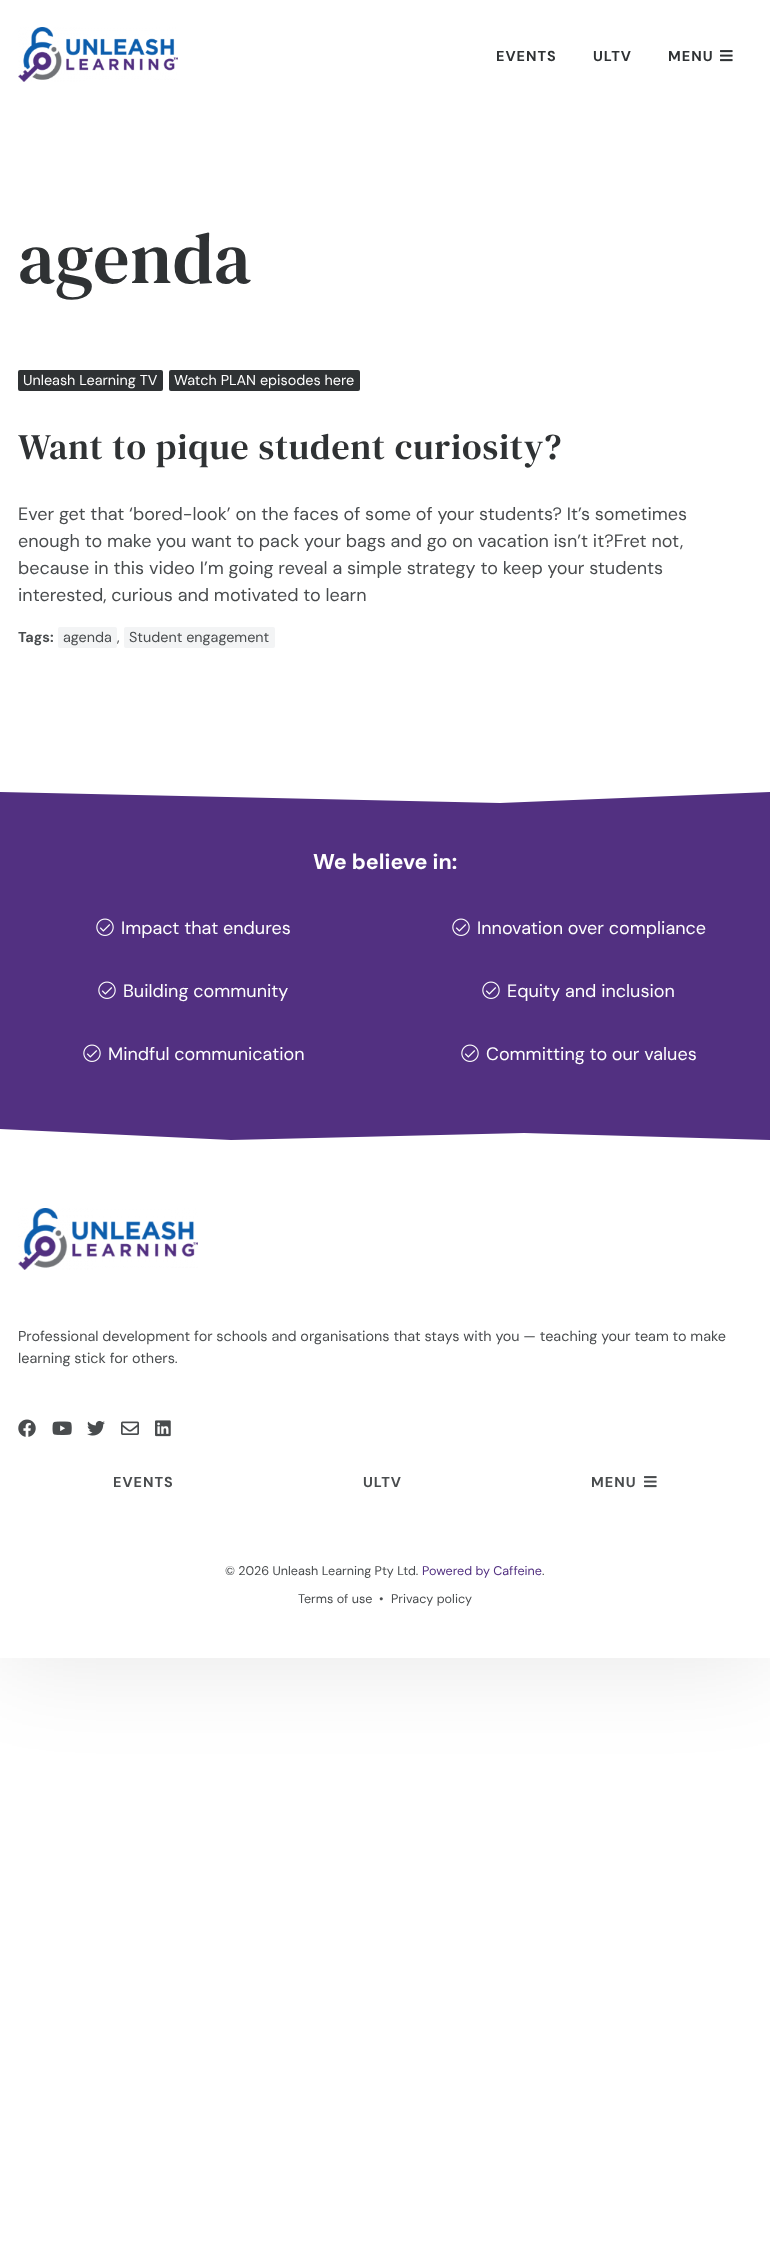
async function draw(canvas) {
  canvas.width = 770
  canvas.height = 2253
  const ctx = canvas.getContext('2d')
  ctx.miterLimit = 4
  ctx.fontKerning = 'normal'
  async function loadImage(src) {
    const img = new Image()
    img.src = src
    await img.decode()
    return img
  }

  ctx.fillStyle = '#fff'
  ctx.fillRect(0, 0, 770, 2253)
  ctx.fillStyle = '#0000001a'
  ctx.filter = 'blur(50px)'
  ctx.beginPath()
  ctx.rect(0, 0, 770, 1658)
  ctx.fill()
  ctx.filter = 'none'
  ctx.fillStyle = '#fff'
  ctx.fillRect(0, 0, 770, 1658)
  ctx.drawImage(await loadImage('image0.png'), 18, 27, 160, 55)
  ctx.letterSpacing = '1px'
  ctx.font = 'bold 14.4px DM Sans'
  ctx.fillStyle = '#2f3234'
  ctx.fillText('EVENTS', 496, 61)
  ctx.fillText('ULTV', 593, 61)
  ctx.fillText('MENU', 668, 61)
  ctx.drawImage(await loadImage('image1.png'), 720, 50, 13, 12)
  ctx.font = '72px DM Serif Text'
  ctx.fillText('agenda', 18, 283)
  ctx.beginPath()
  ctx.roundRect(18, 370, 145, 21, 2)
  ctx.fill()
  ctx.letterSpacing = '0px'
  ctx.font = '14.4px DM Sans'
  ctx.fillStyle = '#fff'
  ctx.fillText('Unleash Learning TV', 23, 385)
  ctx.fillStyle = '#2f3234'
  ctx.beginPath()
  ctx.roundRect(169, 370, 191, 21, 2)
  ctx.fill()
  ctx.fillStyle = '#fff'
  ctx.fillText('Watch PLAN episodes here', 174, 385)
  ctx.letterSpacing = '1px'
  ctx.font = '36px DM Serif Text'
  ctx.fillStyle = '#2f3234'
  ctx.fillText('Want to pique student curiosity?', 18, 459)
  ctx.letterSpacing = '0px'
  ctx.font = '18px DM Sans'
  ctx.fillStyle = '#494c4e'
  ctx.fillText('Ever get that ‘bored-look’ on the faces of some of your students? It’s sometimes', 18, 520)
  ctx.fillText('enough to make you want to pack your bags and go on vacation isn’t it?Fret not,', 18, 547)
  ctx.fillText('because in this video I’m going reveal a simple strategy to keep your students', 18, 574)
  ctx.fillText('interested, curious and motivated to learn', 18, 601)
  ctx.font = 'bold 14.4px DM Sans'
  ctx.fillText('Tags:', 18, 642)
  ctx.fillStyle = '#f3f4f5'
  ctx.beginPath()
  ctx.roundRect(58, 627, 59, 21, 2)
  ctx.fill()
  ctx.font = '14.4px DM Sans'
  ctx.fillStyle = '#494c4e'
  ctx.fillText('agenda', 63, 642)
  ctx.fillText(',', 117, 642)
  ctx.fillStyle = '#f3f4f5'
  ctx.beginPath()
  ctx.roundRect(124, 627, 151, 21, 2)
  ctx.fill()
  ctx.fillStyle = '#494c4e'
  ctx.fillText('Student engagement', 129, 642)
  ctx.fillStyle = '#523081'
  ctx.beginPath()
  ctx.moveTo(500, 803)
  ctx.lineTo(0, 792)
  ctx.lineTo(0, 1129)
  ctx.lineTo(231, 1140)
  ctx.lineTo(524, 1133)
  ctx.lineTo(770, 1140)
  ctx.lineTo(770, 792)
  ctx.closePath()
  ctx.fill()
  ctx.font = 'bold 21.5px DM Sans'
  ctx.fillStyle = '#fff'
  ctx.fillText('We believe in:', 313, 869)
  ctx.drawImage(await loadImage('image2.png'), 96, 918, 18, 18)
  ctx.font = '18px DM Sans'
  ctx.fillText('Impact that endures', 121, 934)
  ctx.drawImage(await loadImage('image2.png'), 452, 918, 18, 18)
  ctx.fillText('Innovation over compliance', 477, 934)
  ctx.drawImage(await loadImage('image2.png'), 98, 981, 18, 18)
  ctx.fillText('Building community', 123, 997)
  ctx.drawImage(await loadImage('image2.png'), 482, 981, 18, 18)
  ctx.fillText('Equity and inclusion', 507, 997)
  ctx.drawImage(await loadImage('image2.png'), 83, 1044, 18, 18)
  ctx.fillText('Mindful communication', 108, 1060)
  ctx.drawImage(await loadImage('image2.png'), 461, 1044, 18, 18)
  ctx.fillText('Committing to our values', 486, 1060)
  ctx.drawImage(await loadImage('image3.png'), 18, 1208, 180, 62)
  ctx.font = '14.4px DM Sans'
  ctx.fillStyle = '#494c4e'
  ctx.fillText('Professional development for schools and organisations that stays with you — teaching your team to make', 18, 1341)
  ctx.fillText('learning stick for others.', 18, 1363)
  ctx.drawImage(await loadImage('image4.png'), 18, 1419, 18, 18)
  ctx.drawImage(await loadImage('image5.png'), 52, 1421, 20, 14)
  ctx.drawImage(await loadImage('image6.png'), 87, 1420, 18, 16)
  ctx.drawImage(await loadImage('image7.png'), 121, 1421, 18, 14)
  ctx.drawImage(await loadImage('image8.png'), 155, 1420, 16, 17)
  ctx.letterSpacing = '1px'
  ctx.font = 'bold 14.4px DM Sans'
  ctx.fillText('EVENTS', 113, 1487)
  ctx.fillText('ULTV', 363, 1487)
  ctx.fillText('MENU', 591, 1487)
  ctx.drawImage(await loadImage('image9.png'), 644, 1476, 13, 12)
  ctx.letterSpacing = '0px'
  ctx.font = '12.6px DM Sans'
  ctx.fillText('© 2026 Unleash Learning Pty Ltd.', 225, 1575)
  ctx.fillStyle = '#523081'
  ctx.fillText('Powered by Caffeine', 422, 1575)
  ctx.fillStyle = '#494c4e'
  ctx.fillText('.', 542, 1575)
  ctx.fillText('Terms of use', 298, 1603)
  ctx.fillText('•', 379, 1603)
  ctx.fillText('Privacy policy', 391, 1603)
}

draw(document.querySelector('canvas'))
